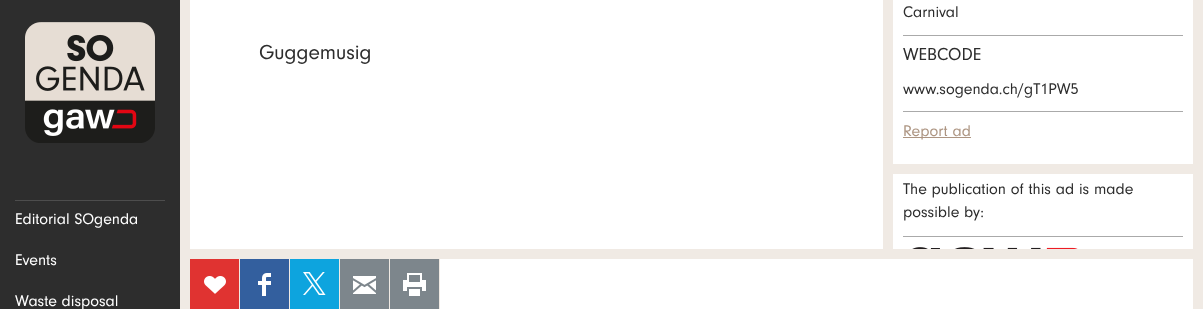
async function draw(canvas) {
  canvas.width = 1203
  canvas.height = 309
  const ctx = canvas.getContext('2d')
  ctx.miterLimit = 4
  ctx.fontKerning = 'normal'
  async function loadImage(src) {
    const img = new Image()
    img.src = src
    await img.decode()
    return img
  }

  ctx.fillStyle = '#f0eae4'
  ctx.fillRect(0, 0, 1203, 309)
  ctx.fillStyle = '#fff'
  ctx.fillRect(190, 0, 1003, 249)
  ctx.font = '21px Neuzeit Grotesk'
  ctx.fillStyle = '#2d2d2d'
  ctx.fillText('Guggemusig', 259, 59)
  ctx.fillStyle = '#f0eae4'
  ctx.fillRect(883, 0, 10, 249)
  ctx.fillStyle = '#aaa'
  ctx.fillRect(903, 35, 280, 1)
  ctx.font = '16px Neuzeit Grotesk'
  ctx.fillStyle = '#2d2d2d'
  ctx.fillText('Carnival', 903, 17)
  ctx.fillStyle = '#aaa'
  ctx.fillRect(903, 111, 280, 1)
  ctx.font = '18px Neuzeit Grotesk'
  ctx.fillStyle = '#2d2d2d'
  ctx.fillText('WEBCODE', 903, 60)
  ctx.font = '16px Neuzeit Grotesk'
  ctx.fillText('www.sogenda.ch/gT1PW5', 903, 94)
  ctx.fillStyle = '#ad9582'
  ctx.fillRect(903, 137, 68, 1)
  ctx.fillText('Report ad', 903, 136)
  ctx.fillStyle = '#f0eae4'
  ctx.fillRect(893, 164, 300, 10)
  ctx.fillStyle = '#aaa'
  ctx.fillRect(903, 236, 280, 1)
  ctx.fillStyle = '#2d2d2d'
  ctx.fillText('The publication of this ad is made', 903, 194)
  ctx.fillText('possible by:', 903, 217)
  ctx.drawImage(await loadImage('image0.png'), 912, 247, 166, 2)
  ctx.fillStyle = '#fff'
  ctx.fillRect(440, 259, 753, 50)
  ctx.fillStyle = '#e03331'
  ctx.fillRect(190, 259, 49, 50)
  ctx.drawImage(await loadImage('image1.png'), 204, 276, 22, 18)
  ctx.fillStyle = '#335f9e'
  ctx.fillRect(240, 259, 49, 50)
  ctx.drawImage(await loadImage('image2.png'), 258, 273, 13, 23)
  ctx.fillStyle = '#0da4de'
  ctx.fillRect(290, 259, 49, 50)
  ctx.drawImage(await loadImage('image3.png'), 303, 272, 23, 23)
  ctx.fillStyle = '#7d868c'
  ctx.fillRect(340, 259, 49, 50)
  ctx.drawImage(await loadImage('image4.png'), 353, 276, 23, 18)
  ctx.fillRect(390, 259, 49, 50)
  ctx.drawImage(await loadImage('image5.png'), 403, 273, 23, 23)
  ctx.fillStyle = '#2d2d2d'
  ctx.fillRect(0, 0, 180, 309)
  ctx.drawImage(await loadImage('image6.png'), 25, 22, 130, 121)
  ctx.fillStyle = '#4d4d4d'
  ctx.fillRect(15, 200, 150, 1)
  ctx.fillStyle = '#fff'
  ctx.fillText('Editorial SOgenda', 15, 224)
  ctx.fillText('Events', 15, 265)
  ctx.fillText('Waste disposal', 15, 306)
}

draw(document.querySelector('canvas'))
